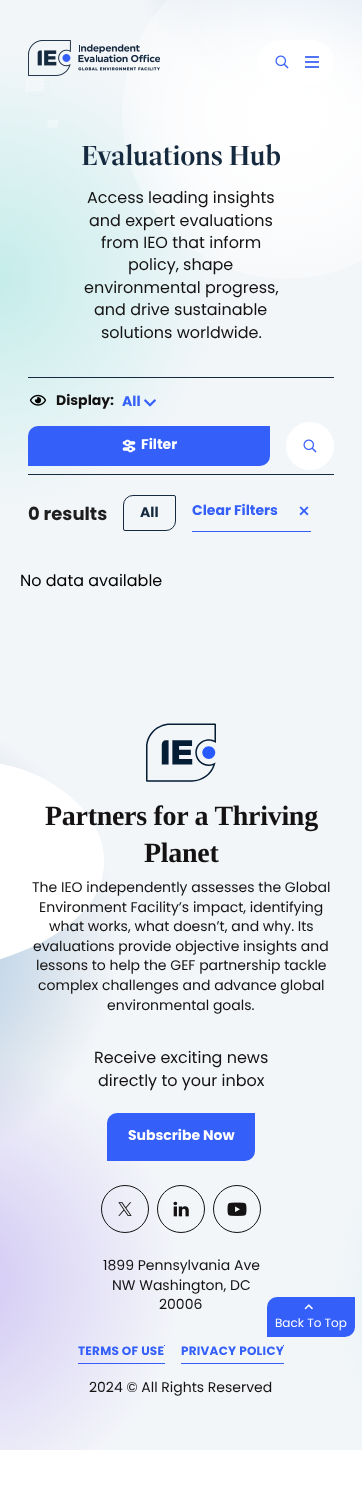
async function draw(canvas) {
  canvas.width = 362
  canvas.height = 1486
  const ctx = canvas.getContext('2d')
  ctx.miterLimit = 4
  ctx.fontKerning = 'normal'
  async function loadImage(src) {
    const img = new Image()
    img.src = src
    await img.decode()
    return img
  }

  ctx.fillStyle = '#fff'
  ctx.fillRect(0, 0, 362, 1486)
  ctx.drawImage(await loadImage('image0.png'), 0, 0, 362, 1450)
  ctx.drawImage(await loadImage('image1.png'), 28, 40, 132, 36)
  ctx.beginPath()
  ctx.roundRect(258, 40, 76, 44, 22)
  ctx.fill()
  ctx.drawImage(await loadImage('image2.png'), 275, 55, 14, 14)
  ctx.drawImage(await loadImage('image3.png'), 305, 56, 14, 12)
  ctx.font = '600 28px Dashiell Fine'
  ctx.fillStyle = '#15293f'
  ctx.fillText('Evaluations Hub', 81, 165)
  ctx.font = '16px Poppins'
  ctx.fillStyle = '#141212'
  ctx.fillText('Access leading insights', 87, 203)
  ctx.fillText('and expert evaluations', 89, 226)
  ctx.fillText('from IEO that inform', 101, 248)
  ctx.fillText('policy, shape', 128, 270)
  ctx.fillText('environmental progress,', 84, 293)
  ctx.fillText('and drive sustainable', 94, 315)
  ctx.fillText('solutions worldwide.', 101, 338)
  ctx.fillStyle = '#15293f'
  ctx.fillRect(28, 377, 306, 1)
  ctx.drawImage(await loadImage('image4.png'), 29, 394, 18, 12)
  ctx.font = 'bold 14px Poppins'
  ctx.fillStyle = '#141212'
  ctx.fillText('Display:', 56, 405)
  ctx.fillStyle = '#345ff9'
  ctx.fillText('All', 122, 406)
  ctx.drawImage(await loadImage('image5.png'), 144, 399, 12, 8)
  ctx.beginPath()
  ctx.roundRect(28, 426, 242, 40, [10, 0, 10, 0])
  ctx.fill()
  ctx.drawImage(await loadImage('image6.png'), 122, 439, 14, 14)
  ctx.fillStyle = '#fff'
  ctx.fillText('Filter', 141, 449)
  ctx.beginPath()
  ctx.arc(310, 446, 24, 0, 2 * Math.PI)
  ctx.fill()
  ctx.drawImage(await loadImage('image2.png'), 303, 439, 14, 14)
  ctx.fillStyle = '#15293f'
  ctx.fillRect(28, 474, 306, 1)
  ctx.font = 'bold 18px Poppins'
  ctx.fillStyle = '#1e1e1e'
  ctx.fillText('0 results', 28, 520)
  ctx.beginPath()
  ctx.roundRect(123.5, 495.5, 52, 35, [9.5, 1.5, 9.5, 1.5])
  ctx.strokeStyle = '#15293f'
  ctx.stroke()
  ctx.font = 'bold 14px Poppins'
  ctx.fillStyle = '#15293f'
  ctx.fillText('All', 140, 517)
  ctx.fillStyle = '#345ff9'
  ctx.fillRect(192, 531, 119, 1)
  ctx.fillText('Clear Filters', 192, 515)
  ctx.drawImage(await loadImage('image7.png'), 299, 506, 10, 10)
  ctx.font = '16px Poppins'
  ctx.fillStyle = '#000'
  ctx.fillText('No data available', 20, 586)
  ctx.drawImage(await loadImage('image8.png'), 146, 723, 70, 59)
  ctx.letterSpacing = '-0.3px'
  ctx.font = 'bold 28px Liberation Serif'
  ctx.fillStyle = '#141212'
  ctx.fillText('Partners for a Thriving', 45, 825)
  ctx.fillText('Planet', 144, 862)
  ctx.letterSpacing = '0px'
  ctx.font = '14px Poppins'
  ctx.fillText('The IEO independently assesses the Global', 32, 892)
  ctx.fillText('Environment Facility’s impact, identifying', 39, 912)
  ctx.fillText('what works, what doesn’t, and why. Its', 49, 931)
  ctx.fillText('evaluations provide objective insights and', 33, 951)
  ctx.fillText('lessons to help the GEF partnership tackle', 36, 970)
  ctx.fillText('complex challenges and advance global', 38, 990)
  ctx.fillText('environmental goals.', 107, 1010)
  ctx.font = '16px Poppins'
  ctx.fillText('Receive exciting news', 94, 1063)
  ctx.fillText('directly to your inbox', 98, 1086)
  ctx.fillStyle = '#345ff9'
  ctx.beginPath()
  ctx.roundRect(107, 1113, 148, 48, [10, 0, 10, 0])
  ctx.fill()
  ctx.font = 'bold 14px Poppins'
  ctx.fillStyle = '#fff'
  ctx.fillText('Subscribe Now', 128, 1140)
  ctx.beginPath()
  ctx.arc(125, 1209, 23.5, 0, 2 * Math.PI)
  ctx.strokeStyle = '#141212'
  ctx.stroke()
  ctx.drawImage(await loadImage('image9.png'), 118, 1202, 14, 14)
  ctx.beginPath()
  ctx.arc(181, 1209, 23.5, 0, 2 * Math.PI)
  ctx.stroke()
  ctx.drawImage(await loadImage('image10.png'), 173, 1201, 16, 16)
  ctx.beginPath()
  ctx.arc(237, 1209, 23.5, 0, 2 * Math.PI)
  ctx.stroke()
  ctx.drawImage(await loadImage('image11.png'), 227, 1202, 20, 14)
  ctx.font = '14px Poppins'
  ctx.fillStyle = '#141212'
  ctx.fillText('1899 Pennsylvania Ave', 103, 1270)
  ctx.fillText('NW Washington, DC', 112, 1290)
  ctx.fillText('20006', 159, 1309)
  ctx.fillStyle = '#345ff9'
  ctx.beginPath()
  ctx.roundRect(267, 1297, 88, 40, [10, 0, 10, 0])
  ctx.fill()
  ctx.drawImage(await loadImage('image12.png'), 304, 1304, 9, 6)
  ctx.font = '12px Poppins'
  ctx.fillStyle = '#fff'
  ctx.fillText('Back To Top', 275, 1327)
  ctx.letterSpacing = '0.25px'
  ctx.font = 'bold 12px Poppins'
  ctx.fillStyle = '#345ff9'
  ctx.fillText('TERMS OF USE', 78, 1355)
  ctx.fillRect(78, 1363, 87, 1)
  ctx.fillRect(164, 1345, 1, 1)
  ctx.fillText('PRIVACY POLICY', 181, 1355)
  ctx.fillRect(181, 1363, 103, 1)
  ctx.fillRect(283, 1345, 1, 1)
  ctx.letterSpacing = '0px'
  ctx.font = '14px Poppins'
  ctx.fillStyle = '#141212'
  ctx.fillText('2024 © All Rights Reserved', 89, 1392)
}

draw(document.querySelector('canvas'))
